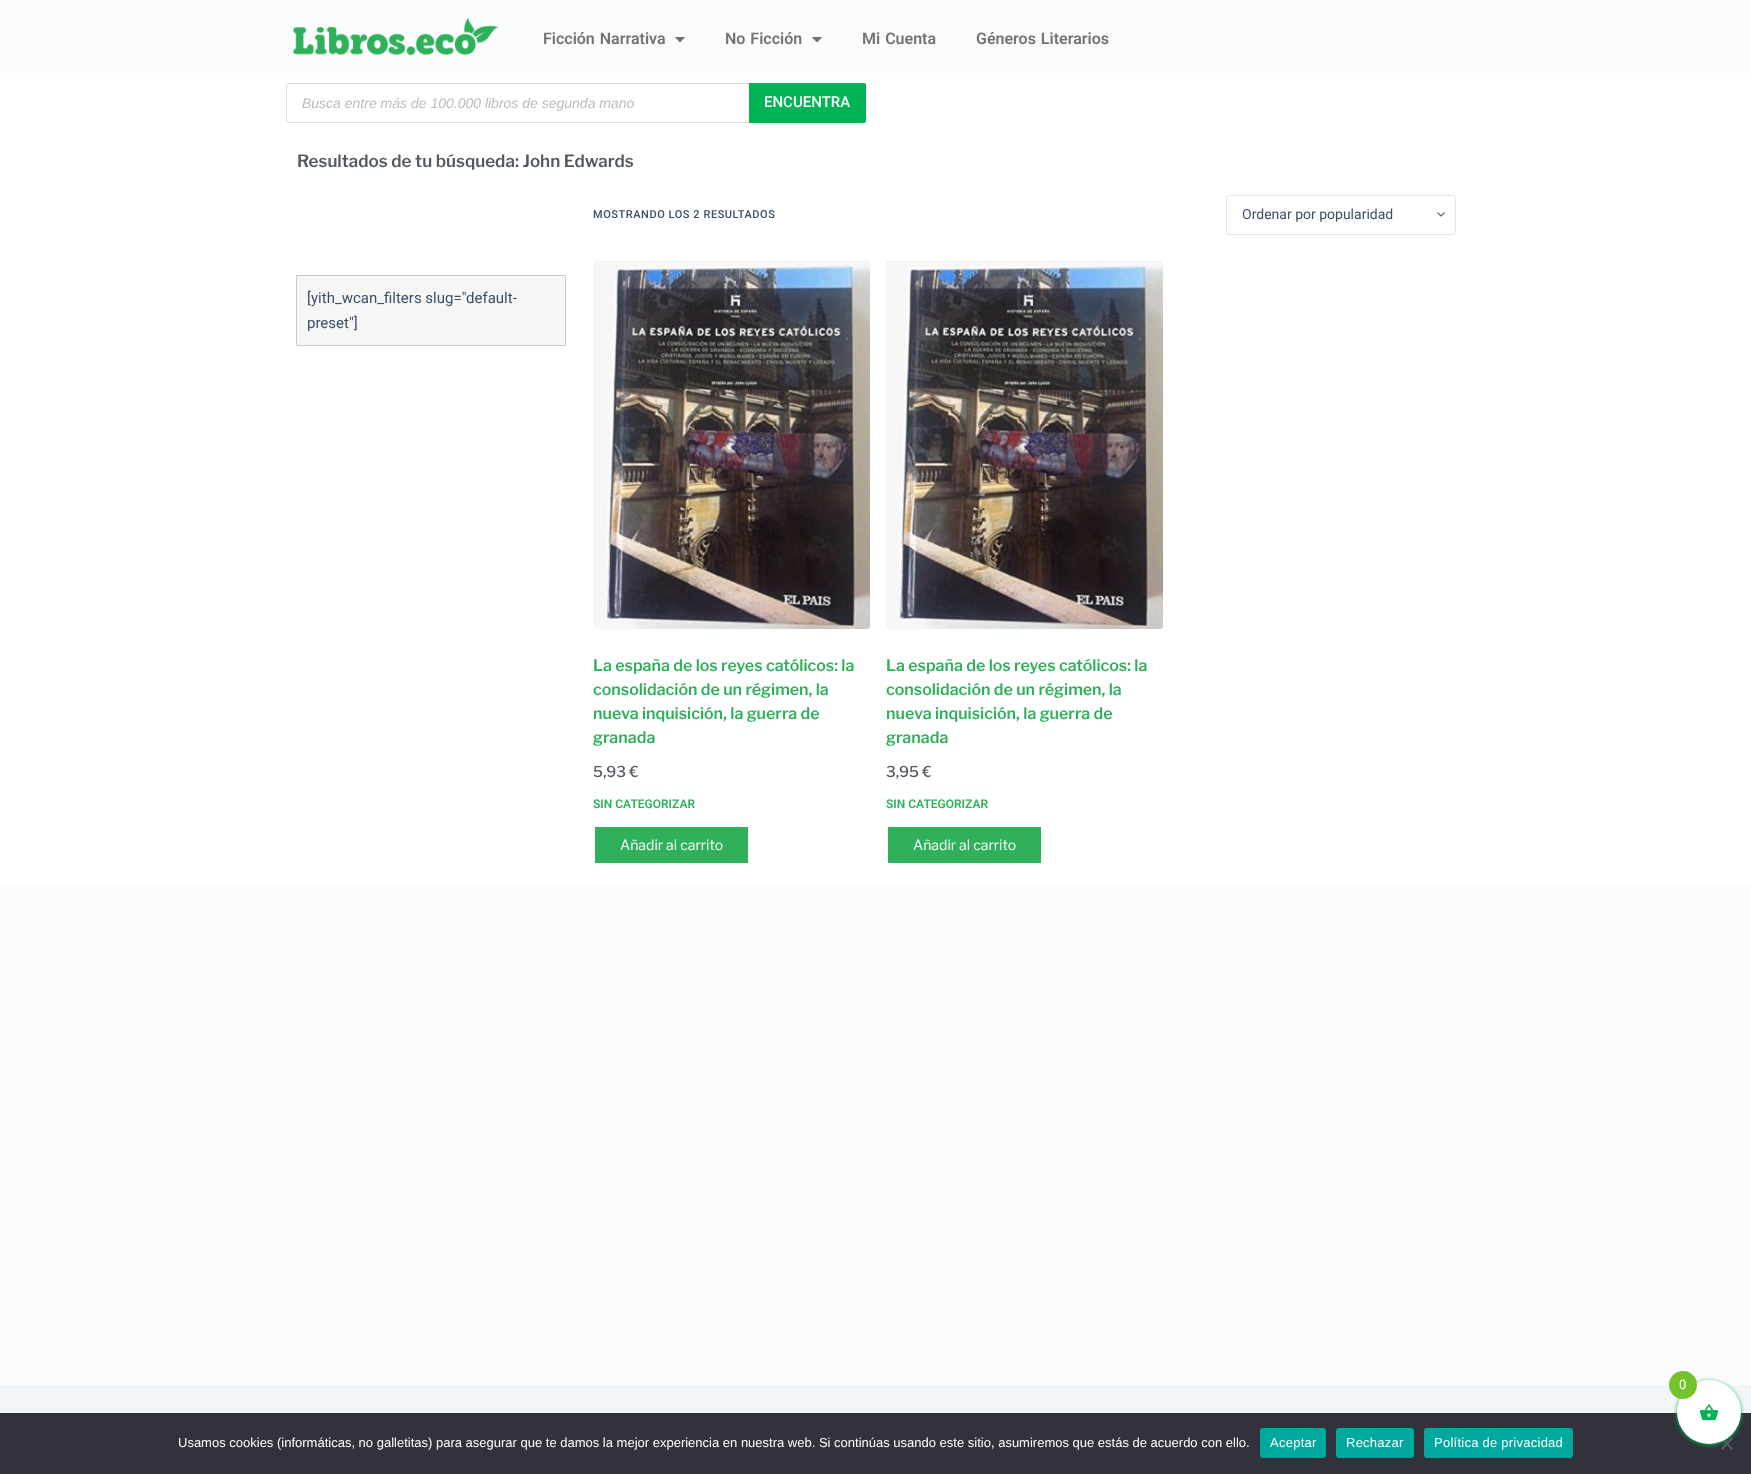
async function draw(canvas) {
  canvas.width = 1751
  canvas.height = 1474
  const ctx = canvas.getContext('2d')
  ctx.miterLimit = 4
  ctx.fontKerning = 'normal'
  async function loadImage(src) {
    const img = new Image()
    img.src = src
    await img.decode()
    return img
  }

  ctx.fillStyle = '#fafbfc'
  ctx.fillRect(0, 0, 1751, 1474)
  ctx.drawImage(await loadImage('image0.png'), 292, 16, 208, 40)
  ctx.wordSpacing = '1px'
  ctx.font = '600 16px Roboto'
  ctx.fillStyle = '#777272'
  ctx.fillText('Ficción Narrativa', 543, 44)
  ctx.drawImage(await loadImage('image1.png'), 675, 37, 10, 6)
  ctx.fillText('No Ficción', 725, 44)
  ctx.drawImage(await loadImage('image1.png'), 812, 37, 10, 6)
  ctx.fillText('Mi Cuenta', 862, 44)
  ctx.fillText('Géneros Literarios', 976, 44)
  ctx.fillStyle = '#fff'
  ctx.fillRect(0, 73, 1751, 812)
  ctx.beginPath()
  ctx.roundRect(286.5, 83.5, 579, 39, 2.5)
  ctx.strokeStyle = '#ddd'
  ctx.stroke()
  ctx.wordSpacing = '0px'
  ctx.font = 'italic 14px Liberation Sans'
  ctx.fillStyle = '#bcbaba'
  ctx.fillText('Busca entre más de 100.000 libros de segunda mano', 302, 108)
  ctx.fillStyle = '#00b354'
  ctx.beginPath()
  ctx.roundRect(749, 83, 117, 40, [0, 2, 2, 0])
  ctx.fill()
  ctx.font = '500 15px Roboto'
  ctx.fillStyle = '#fff'
  ctx.fillText('ENCUENTRA', 764, 107)
  ctx.font = '600 17px Libre Franklin'
  ctx.fillStyle = '#54595f'
  ctx.fillText('Resultados de tu búsqueda: John Edwards', 297, 167)
  ctx.fillStyle = '#f6f6f6'
  ctx.beginPath()
  ctx.rect(296.5, 275.5, 269, 70)
  ctx.fill()
  ctx.strokeStyle = '#c9c9c9'
  ctx.stroke()
  ctx.font = '15px Roboto'
  ctx.fillStyle = '#3a4f66'
  ctx.fillText('[yith_wcan_filters slug="default-', 307, 303)
  ctx.fillText('preset"]', 307, 328)
  ctx.letterSpacing = '0.55px'
  ctx.font = '500 11px Roboto'
  ctx.fillText('MOSTRANDO LOS 2 RESULTADOS', 593, 218)
  ctx.drawImage(await loadImage('image2.png'), 1437, 212, 8, 5)
  ctx.beginPath()
  ctx.roundRect(1226.5, 195.5, 229, 39, 2.5)
  ctx.strokeStyle = '#e1e8ed'
  ctx.stroke()
  ctx.letterSpacing = '0px'
  ctx.font = '14px Roboto'
  ctx.fillText('Ordenar por popularidad', 1242, 219)
  ctx.drawImage(await loadImage('image3.png'), 593, 260, 277, 369)
  ctx.font = '600 16px Libre Franklin'
  ctx.fillStyle = '#2fb15b'
  ctx.fillText('La españa de los reyes católicos: la', 593, 671)
  ctx.fillText('consolidación de un régimen, la', 593, 695)
  ctx.fillText('nueva inquisición, la guerra de', 593, 719)
  ctx.fillText('granada', 593, 743)
  ctx.font = '500 15px Libre Franklin'
  ctx.fillStyle = '#54595f'
  ctx.fillText('5,93 €', 593, 777)
  ctx.font = '600 12px Roboto'
  ctx.fillStyle = '#2fb15b'
  ctx.fillText('SIN CATEGORIZAR', 593, 808)
  ctx.fillRect(595, 827, 153, 36)
  ctx.font = '14px Libre Franklin'
  ctx.fillStyle = '#fff'
  ctx.fillText('Añadir al carrito', 620, 850)
  ctx.drawImage(await loadImage('image4.png'), 886, 260, 277, 369)
  ctx.font = '600 16px Libre Franklin'
  ctx.fillStyle = '#2fb15b'
  ctx.fillText('La españa de los reyes católicos: la', 886, 671)
  ctx.fillText('consolidación de un régimen, la', 886, 695)
  ctx.fillText('nueva inquisición, la guerra de', 886, 719)
  ctx.fillText('granada', 886, 743)
  ctx.font = '500 15px Libre Franklin'
  ctx.fillStyle = '#54595f'
  ctx.fillText('3,95 €', 886, 777)
  ctx.font = '600 12px Roboto'
  ctx.fillStyle = '#2fb15b'
  ctx.fillText('SIN CATEGORIZAR', 886, 808)
  ctx.fillRect(888, 827, 153, 36)
  ctx.font = '14px Libre Franklin'
  ctx.fillStyle = '#fff'
  ctx.fillText('Añadir al carrito', 913, 850)
  ctx.fillStyle = '#f2f5f7'
  ctx.fillRect(0, 1385, 1751, 28)
  ctx.fillStyle = '#32323a'
  ctx.fillRect(0, 1413, 1751, 61)
  ctx.fillStyle = '#59595d'
  ctx.beginPath()
  ctx.moveTo(1731.5, 1437.5)
  ctx.lineTo(1733, 1439)
  ctx.lineTo(1722.5, 1450)
  ctx.lineTo(1721, 1448.5)
  ctx.closePath()
  ctx.fill()
  ctx.beginPath()
  ctx.moveTo(1721, 1439)
  ctx.lineTo(1722.5, 1437.5)
  ctx.lineTo(1733, 1448.5)
  ctx.lineTo(1731.5, 1450)
  ctx.closePath()
  ctx.fill()
  ctx.fillStyle = '#00b354'
  ctx.filter = 'blur(2px)'
  ctx.beginPath()
  ctx.roundRect(1677, 1381, 64, 64, 32)
  ctx.fill()
  ctx.filter = 'none'
  ctx.fillStyle = '#fff'
  ctx.beginPath()
  ctx.arc(1709, 1412, 32, 0, 2 * Math.PI)
  ctx.fill()
  ctx.fillStyle = '#75c32c'
  ctx.beginPath()
  ctx.arc(1683, 1385, 14, 0, 2 * Math.PI)
  ctx.fill()
  ctx.font = '13px Roboto'
  ctx.fillStyle = '#fff'
  ctx.fillText('0', 1679, 1389)
  ctx.drawImage(await loadImage('image5.png'), 1699, 1404, 20, 17)
  ctx.font = '13px Liberation Sans'
  ctx.fillText('Usamos cookies (informáticas, no galletitas) para asegurar que te damos la mejor experiencia en nuestra web. Si continúas usando este sitio, asumiremos que estás de acuerdo con ello.', 178, 1447)
  ctx.fillStyle = '#00a99d'
  ctx.beginPath()
  ctx.roundRect(1260, 1428, 66, 30, 3)
  ctx.fill()
  ctx.letterSpacing = '0.25px'
  ctx.fillStyle = '#fff'
  ctx.fillText('Aceptar', 1270, 1447)
  ctx.fillStyle = '#00a99d'
  ctx.beginPath()
  ctx.roundRect(1336, 1428, 78, 30, 3)
  ctx.fill()
  ctx.fillStyle = '#fff'
  ctx.fillText('Rechazar', 1346, 1447)
  ctx.fillStyle = '#00a99d'
  ctx.beginPath()
  ctx.roundRect(1424, 1428, 149, 30, 3)
  ctx.fill()
  ctx.fillStyle = '#fff'
  ctx.fillText('Política de privacidad', 1434, 1447)
}

draw(document.querySelector('canvas'))
